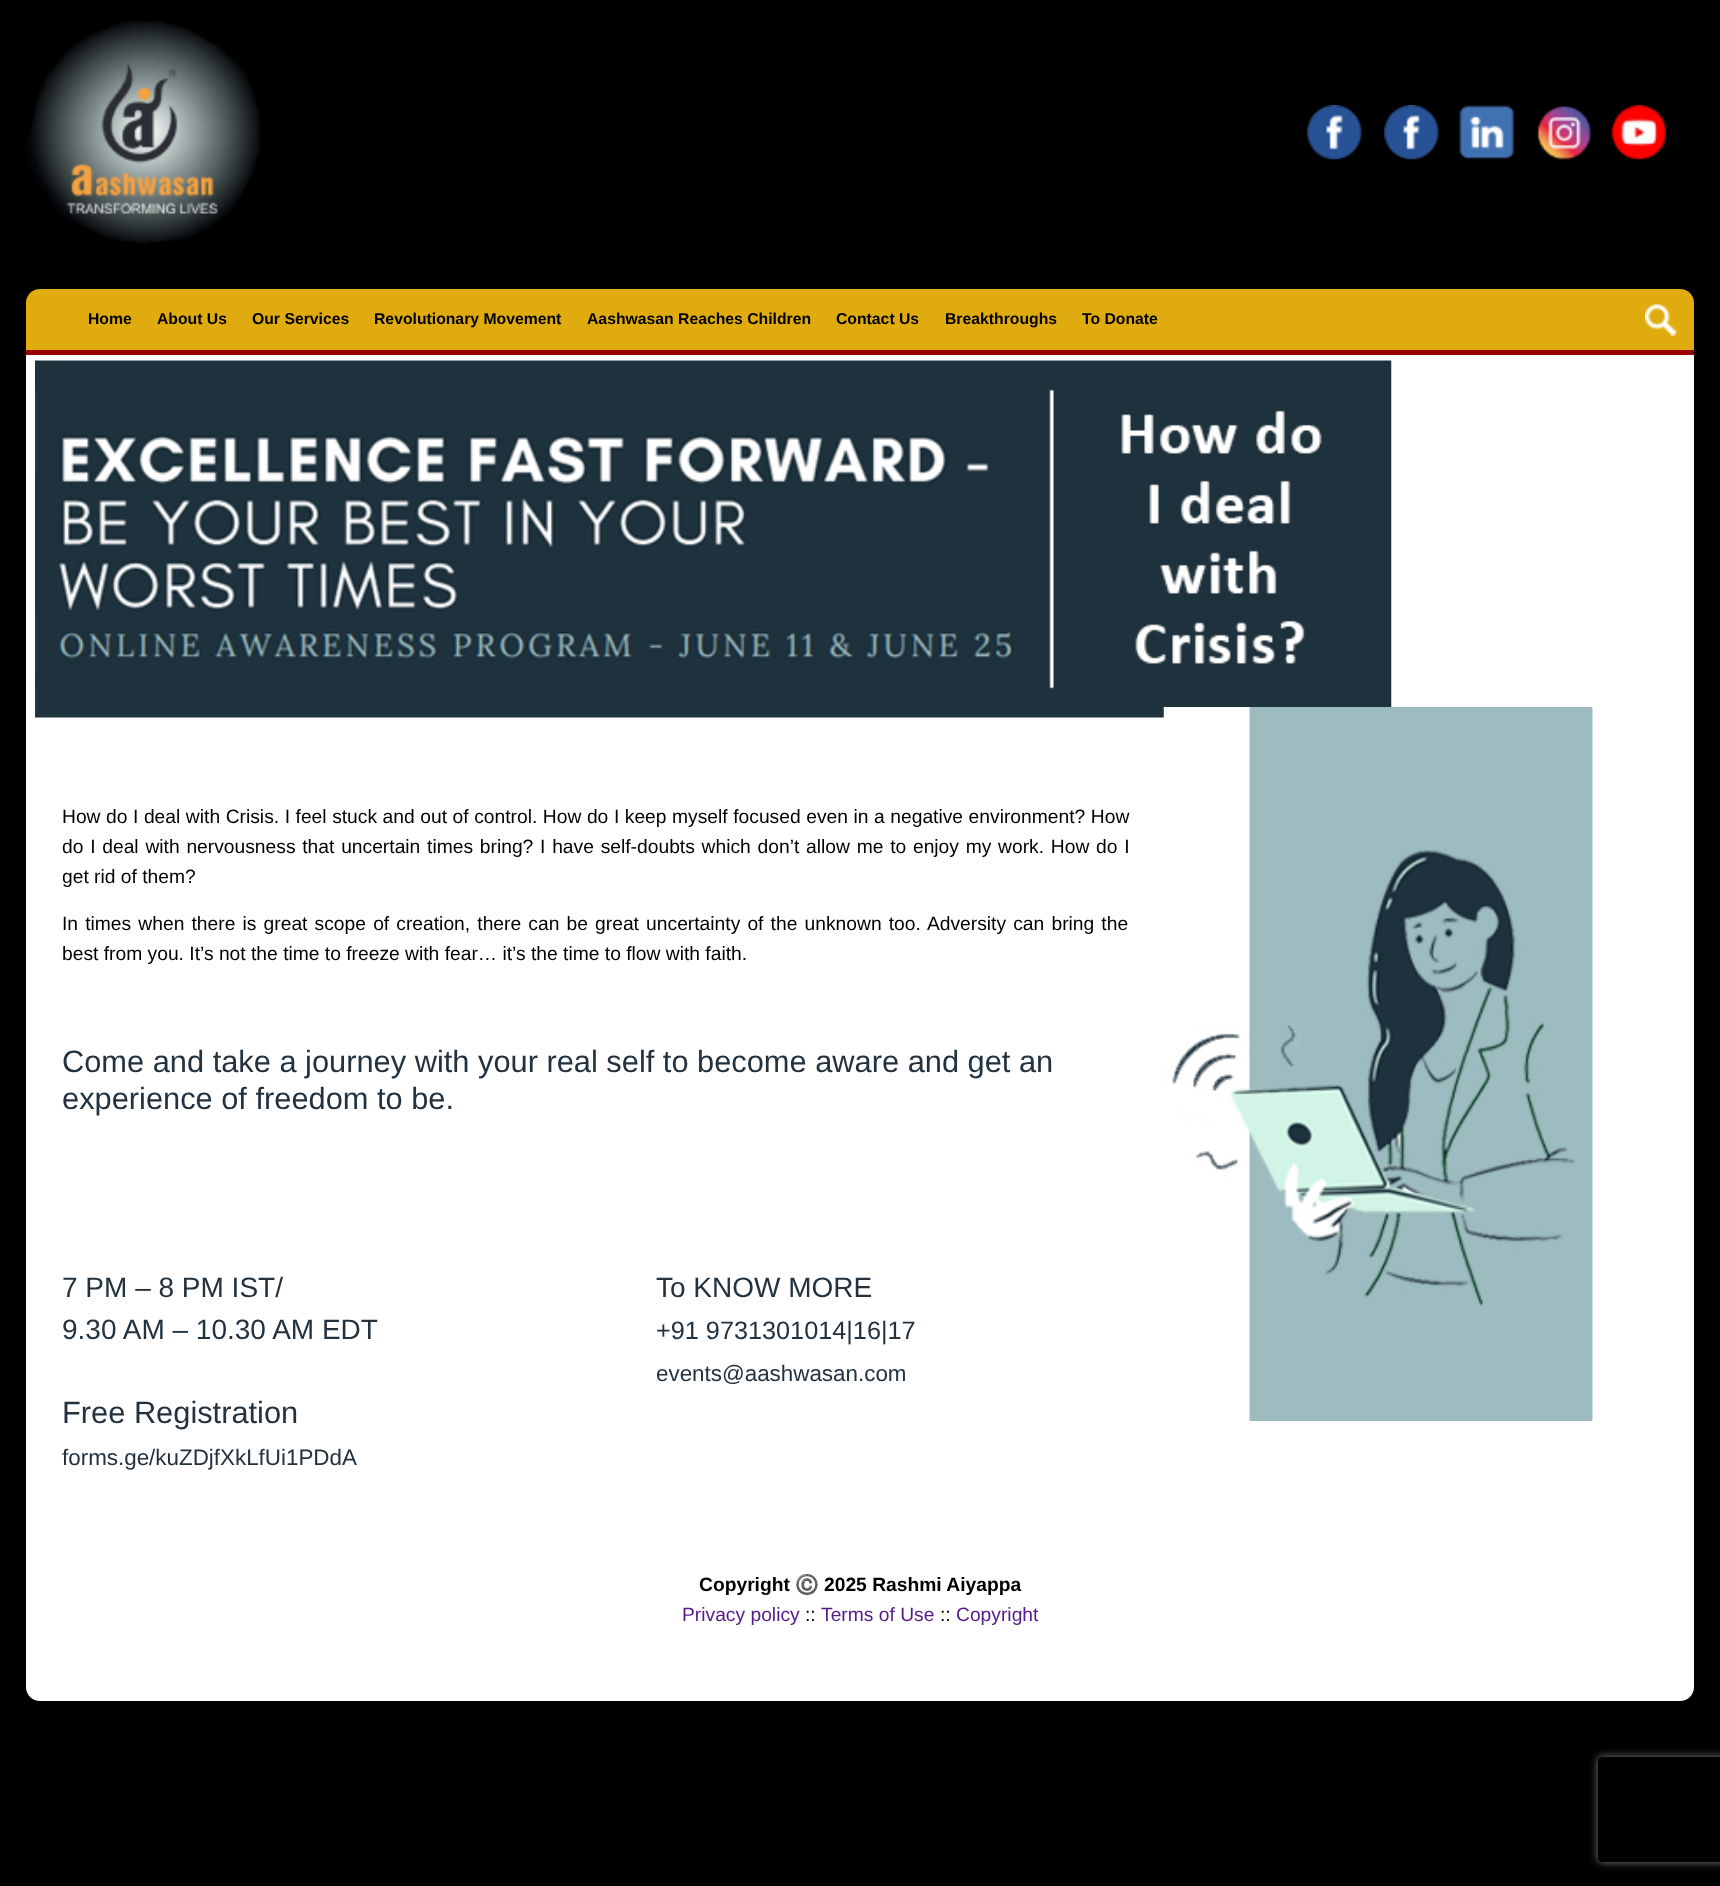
async function draw(canvas) {
  canvas.width = 1720
  canvas.height = 1886
  const ctx = canvas.getContext('2d')
  ctx.miterLimit = 4
  ctx.fontKerning = 'normal'
  async function loadImage(src) {
    const img = new Image()
    img.src = src
    await img.decode()
    return img
  }

  ctx.fillStyle = '#000'
  ctx.fillRect(0, 0, 1720, 1886)
  ctx.drawImage(await loadImage('image0.png'), 26, 21, 235, 223)
  ctx.drawImage(await loadImage('image1.png'), 1307, 105, 55, 55)
  ctx.drawImage(await loadImage('image2.png'), 1384, 105, 55, 55)
  ctx.drawImage(await loadImage('image3.png'), 1459, 105, 55, 55)
  ctx.drawImage(await loadImage('image4.png'), 1537, 106, 54, 54)
  ctx.drawImage(await loadImage('image5.png'), 1611, 105, 55, 55)
  ctx.fillStyle = '#dfab0e'
  ctx.beginPath()
  ctx.roundRect(26, 289, 1668, 66, [14, 14, 0, 0])
  ctx.fill()
  ctx.fillStyle = '#900'
  ctx.fillRect(26, 350, 1668, 5)
  ctx.font = 'bold 15.75px Liberation Sans'
  ctx.fillStyle = '#000'
  ctx.fillText('Home', 88, 324)
  ctx.fillText('About Us', 157, 324)
  ctx.fillText('Our Services', 252, 324)
  ctx.fillText('Revolutionary Movement', 374, 324)
  ctx.fillText('Aashwasan Reaches Children', 587, 324)
  ctx.fillText('Contact Us', 836, 324)
  ctx.fillText('Breakthroughs', 945, 324)
  ctx.fillText('To Donate', 1082, 324)
  ctx.drawImage(await loadImage('image6.png'), 1645, 304, 32, 32)
  ctx.fillStyle = '#fff'
  ctx.fillRect(26, 355, 1668, 1215)
  ctx.drawImage(await loadImage('image7.png'), 35, 360, 1357, 358)
  ctx.wordSpacing = '0.2px'
  ctx.font = '19.25px Liberation Sans'
  ctx.fillStyle = '#000'
  ctx.fillText('How do I deal with Crisis. I feel stuck and out of control. How do I keep myself focused even in a negative environment? How', 62, 823)
  ctx.wordSpacing = '1.4px'
  ctx.fillText('do I deal with nervousness that uncertain times bring? I have self-doubts which don’t allow me to enjoy my work. How do I', 62, 853)
  ctx.wordSpacing = '0px'
  ctx.fillText('get rid of them?', 62, 883)
  ctx.wordSpacing = '1.8px'
  ctx.fillText('In times when there is great scope of creation, there can be great uncertainty of the unknown too. Adversity can bring the', 62, 930)
  ctx.wordSpacing = '0px'
  ctx.fillText('best from you. It’s not the time to freeze with fear… it’s the time to flow with faith.', 62, 960)
  ctx.font = '30.8px Liberation Sans'
  ctx.fillStyle = '#22323f'
  ctx.fillText('Come and take a journey with your real self to become aware and get an', 62, 1072)
  ctx.fillText('experience of freedom to be.', 62, 1109)
  ctx.font = '28px Liberation Sans'
  ctx.fillText('7 PM – 8 PM IST/', 62, 1297)
  ctx.fillText('9.30 AM – 10.30 AM EDT', 62, 1339)
  ctx.font = '30.8px Liberation Sans'
  ctx.fillText('Free Registration', 62, 1423)
  ctx.font = '22.4px Liberation Sans'
  ctx.fillText('forms.ge/kuZDjfXkLfUi1PDdA', 62, 1465)
  ctx.font = '28px Liberation Sans'
  ctx.fillText('To KNOW MORE', 656, 1297)
  ctx.font = '25.25px Liberation Sans'
  ctx.fillText('+91 9731301014|16|17', 656, 1339)
  ctx.font = '22.4px Liberation Sans'
  ctx.fillText('events@aashwasan.com', 656, 1381)
  ctx.drawImage(await loadImage('image8.png'), 1163, 707, 430, 714)
  ctx.fillStyle = '#fff'
  ctx.beginPath()
  ctx.roundRect(26, 1570, 1668, 131, [0, 0, 14, 14])
  ctx.fill()
  ctx.font = 'bold 19.25px Liberation Sans'
  ctx.fillStyle = '#000'
  ctx.fillText('Copyright', 699, 1591)
  ctx.font = 'bold 19.25px Noto Color Emoji'
  ctx.fillText('©️', 795, 1591)
  ctx.font = 'bold 19.25px Liberation Sans'
  ctx.fillText('2025 Rashmi Aiyappa', 824, 1591)
  ctx.font = '19.25px Liberation Sans'
  ctx.fillStyle = '#551a8b'
  ctx.fillText('Privacy policy', 682, 1621)
  ctx.fillStyle = '#000'
  ctx.fillText('::', 805, 1621)
  ctx.fillStyle = '#551a8b'
  ctx.fillText('Terms of Use', 821, 1621)
  ctx.fillStyle = '#000'
  ctx.fillText('::', 940, 1621)
  ctx.fillStyle = '#551a8b'
  ctx.fillText('Copyright', 956, 1621)
  ctx.save()
  ctx.beginPath()
  ctx.moveTo(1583, 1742)
  ctx.lineTo(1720, 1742)
  ctx.lineTo(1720, 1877)
  ctx.lineTo(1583, 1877)
  ctx.closePath()
  ctx.moveTo(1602, 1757)
  ctx.lineTo(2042, 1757)
  ctx.bezierCurveTo(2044, 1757, 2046, 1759, 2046, 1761)
  ctx.lineTo(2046, 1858)
  ctx.bezierCurveTo(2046, 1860, 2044, 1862, 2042, 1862)
  ctx.lineTo(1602, 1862)
  ctx.bezierCurveTo(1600, 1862, 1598, 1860, 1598, 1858)
  ctx.lineTo(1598, 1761)
  ctx.bezierCurveTo(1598, 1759, 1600, 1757, 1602, 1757)
  ctx.closePath()
  ctx.clip('evenodd')
  ctx.fillStyle = '#808080'
  ctx.filter = 'blur(4.5px)'
  ctx.beginPath()
  ctx.roundRect(1598, 1757, 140, 105, 4)
  ctx.fill()
  ctx.filter = 'none'
  ctx.restore()
}

draw(document.querySelector('canvas'))
